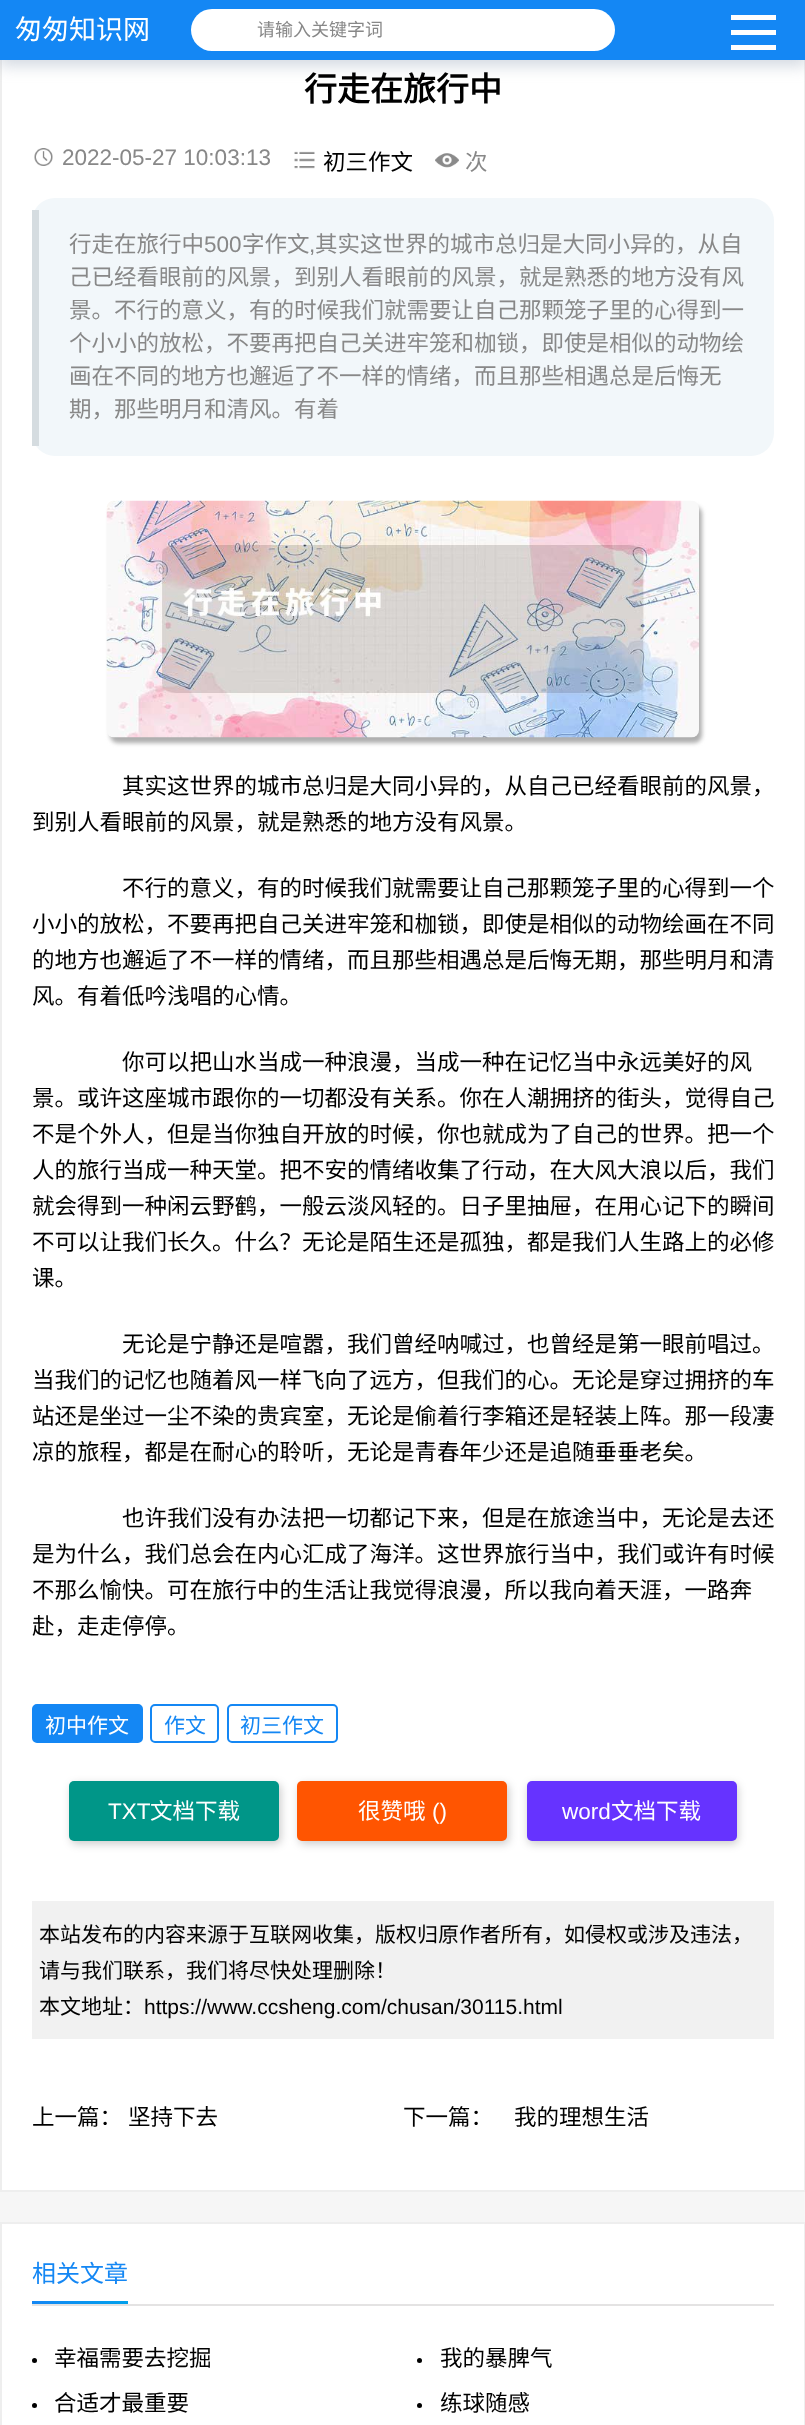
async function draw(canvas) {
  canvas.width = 805
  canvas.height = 2425
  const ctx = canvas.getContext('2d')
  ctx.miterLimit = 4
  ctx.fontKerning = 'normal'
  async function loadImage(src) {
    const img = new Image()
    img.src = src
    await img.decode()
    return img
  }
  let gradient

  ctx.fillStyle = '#f6f6f6'
  ctx.fillRect(0, 0, 805, 2425)
  ctx.fillStyle = '#fff'
  ctx.fillRect(2, 60, 802, 2130)
  ctx.strokeStyle = '#eee'
  ctx.lineWidth = 2
  ctx.strokeRect(1, -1, 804, 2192)
  ctx.fillStyle = '#90a1b466'
  ctx.filter = 'blur(7.5px)'
  ctx.beginPath()
  ctx.rect(-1, 3, 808, 63)
  ctx.fill()
  ctx.filter = 'none'
  ctx.fillStyle = '#1487f4'
  ctx.fillRect(0, 0, 805, 60)
  ctx.font = '27px Noto Sans CJK SC'
  ctx.fillStyle = '#fff'
  ctx.fillText('匆匆知识网', 15, 39)
  ctx.fillRect(731, 30, 45, 5)
  ctx.fillStyle = '#fffefe'
  ctx.fillRect(731, 15, 45, 5)
  ctx.fillRect(731, 45, 45, 5)
  ctx.fillStyle = '#fff'
  ctx.beginPath()
  ctx.roundRect(191, 9, 424, 42, 21)
  ctx.fill()
  ctx.font = '18px Noto Sans CJK SC'
  ctx.fillStyle = '#888'
  ctx.fillText('请输入关键字词', 257, 36)
  ctx.font = 'bold 33px Noto Sans CJK SC'
  ctx.fillStyle = '#000'
  ctx.fillText('行走在旅行中', 304, 101)
  ctx.drawImage(await loadImage('image0.png'), 34, 148, 19, 18)
  ctx.font = '22.5px Liberation Sans'
  ctx.fillStyle = '#888'
  ctx.fillText('2022-05-27 10:03:13', 62, 165)
  ctx.drawImage(await loadImage('image1.png'), 294, 151, 21, 18)
  ctx.font = '22.5px Noto Sans CJK SC'
  ctx.fillStyle = '#000'
  ctx.fillText('初三作文', 323, 170)
  ctx.drawImage(await loadImage('image2.png'), 435, 153, 24, 15)
  ctx.fillStyle = '#888'
  ctx.fillText('次', 465, 170)
  ctx.fillStyle = '#f2f7fa'
  ctx.beginPath()
  ctx.roundRect(32, 198, 742, 258, 23)
  ctx.fill()
  ctx.fillStyle = '#d5dce0'
  ctx.fillRect(32, 210, 7, 236)
  ctx.fillStyle = '#888'
  ctx.fillText('行走在旅行中', 69, 252)
  ctx.font = '22.5px Liberation Sans'
  ctx.fillText('500', 204, 252)
  ctx.font = '22.5px Noto Sans CJK SC'
  ctx.fillText('字作文', 242, 252)
  ctx.font = '22.5px Liberation Sans'
  ctx.fillText(',', 309, 252)
  ctx.font = '22.5px Noto Sans CJK SC'
  ctx.fillText('其实这世界的城市总归是大同小异的，从自', 315, 252)
  ctx.fillText('己已经看眼前的风景，到别人看眼前的风景，就是熟悉的地方没有风', 69, 285)
  ctx.fillText('景。不行的意义，有的时候我们就需要让自己那颗笼子里的心得到一', 69, 318)
  ctx.fillText('个小小的放松，不要再把自己关进牢笼和枷锁，即使是相似的动物绘', 69, 351)
  ctx.fillText('画在不同的地方也邂逅了不一样的情绪，而且那些相遇总是后悔无', 69, 384)
  ctx.fillText('期，那些明月和清风。有着', 69, 417)
  ctx.fillStyle = '#aeaeae'
  ctx.filter = 'blur(2px)'
  ctx.beginPath()
  ctx.roundRect(110, 506, 592, 237, 8)
  ctx.fill()
  ctx.filter = 'none'
  ctx.drawImage(await loadImage('image3.png'), 106, 500, 593, 238)
  ctx.fillStyle = '#000'
  ctx.fillText('其实这世界的城市总归是大同小异的，从自己已经看眼前的风景，', 122, 794)
  ctx.fillText('到别人看眼前的风景，就是熟悉的地方没有风景。', 32, 830)
  ctx.fillText('不行的意义，有的时候我们就需要让自己那颗笼子里的心得到一个', 122, 896)
  ctx.fillText('小小的放松，不要再把自己关进牢笼和枷锁，即使是相似的动物绘画在不同', 32, 932)
  ctx.fillText('的地方也邂逅了不一样的情绪，而且那些相遇总是后悔无期，那些明月和清', 32, 968)
  ctx.fillText('风。有着低吟浅唱的心情。', 32, 1004)
  ctx.fillText('你可以把山水当成一种浪漫，当成一种在记忆当中永远美好的风', 122, 1070)
  ctx.fillText('景。或许这座城市跟你的一切都没有关系。你在人潮拥挤的街头，觉得自己', 32, 1106)
  ctx.fillText('不是个外人，但是当你独自开放的时候，你也就成为了自己的世界。把一个', 32, 1142)
  ctx.fillText('人的旅行当成一种天堂。把不安的情绪收集了行动，在大风大浪以后，我们', 32, 1178)
  ctx.fillText('就会得到一种闲云野鹤，一般云淡风轻的。日子里抽屉，在用心记下的瞬间', 32, 1214)
  ctx.fillText('不可以让我们长久。什么？无论是陌生还是孤独，都是我们人生路上的必修', 32, 1250)
  ctx.fillText('课。', 32, 1286)
  ctx.fillText('无论是宁静还是喧嚣，我们曾经呐喊过，也曾经是第一眼前唱过。', 122, 1352)
  ctx.fillText('当我们的记忆也随着风一样飞向了远方，但我们的心。无论是穿过拥挤的车', 32, 1388)
  ctx.fillText('站还是坐过一尘不染的贵宾室，无论是偷着行李箱还是轻装上阵。那一段凄', 32, 1424)
  ctx.fillText('凉的旅程，都是在耐心的聆听，无论是青春年少还是追随垂垂老矣。', 32, 1460)
  ctx.fillText('也许我们没有办法把一切都记下来，但是在旅途当中，无论是去还', 122, 1526)
  ctx.fillText('是为什么，我们总会在内心汇成了海洋。这世界旅行当中，我们或许有时候', 32, 1562)
  ctx.fillText('不那么愉快。可在旅行中的生活让我觉得浪漫，所以我向着天涯，一路奔', 32, 1598)
  ctx.fillText('赴，走走停停。', 32, 1634)
  ctx.fillStyle = '#1487f4'
  ctx.beginPath()
  ctx.roundRect(33, 1705, 109, 37, 4)
  ctx.fill()
  ctx.strokeStyle = '#1487f4'
  ctx.stroke()
  ctx.font = '21px Noto Sans CJK SC'
  ctx.fillStyle = '#fff'
  ctx.fillText('初中作文', 45, 1733)
  ctx.beginPath()
  ctx.roundRect(151, 1705, 67, 37, 4)
  ctx.stroke()
  ctx.fillStyle = '#1487f4'
  ctx.fillText('作文', 164, 1733)
  ctx.beginPath()
  ctx.roundRect(228, 1705, 109, 37, 4)
  ctx.stroke()
  ctx.fillText('初三作文', 240, 1733)
  ctx.fillStyle = '#00000033'
  ctx.filter = 'blur(4.5px)'
  ctx.beginPath()
  ctx.roundRect(71, 1784, 210, 60, 5)
  ctx.fill()
  ctx.filter = 'none'
  ctx.fillStyle = '#009688'
  ctx.beginPath()
  ctx.roundRect(69, 1781, 210, 60, 5)
  ctx.fill()
  ctx.font = '22.5px Liberation Sans'
  ctx.fillStyle = '#fff'
  ctx.fillText('TXT', 108, 1819)
  ctx.font = '22.5px Noto Sans CJK SC'
  ctx.fillText('文档下载', 150, 1819)
  ctx.fillStyle = '#00000033'
  ctx.filter = 'blur(4.5px)'
  ctx.beginPath()
  ctx.roundRect(299, 1784, 210, 60, 5)
  ctx.fill()
  ctx.filter = 'none'
  ctx.fillStyle = '#ff5501'
  ctx.beginPath()
  ctx.roundRect(297, 1781, 210, 60, 5)
  ctx.fill()
  ctx.fillStyle = '#fff'
  ctx.fillText('很赞哦', 358, 1819)
  ctx.font = '22.5px Liberation Sans'
  ctx.fillText('()', 432, 1819)
  ctx.fillStyle = '#00000033'
  ctx.filter = 'blur(4.5px)'
  ctx.beginPath()
  ctx.roundRect(528, 1784, 210, 60, 5)
  ctx.fill()
  ctx.filter = 'none'
  ctx.fillStyle = '#63f'
  ctx.beginPath()
  ctx.roundRect(527, 1781, 210, 60, 5)
  ctx.fill()
  ctx.fillStyle = '#fff'
  ctx.fillText('word', 562, 1819)
  ctx.font = '22.5px Noto Sans CJK SC'
  ctx.fillText('文档下载', 611, 1819)
  ctx.fillStyle = '#f1f1f1'
  ctx.fillRect(32, 1901, 742, 138)
  ctx.font = '21px Noto Sans CJK SC'
  ctx.fillStyle = '#000'
  ctx.fillText('本站发布的内容来源于互联网收集，版权归原作者所有，如侵权或涉及违法，', 39, 1942)
  ctx.fillText('请与我们联系，我们将尽快处理删除！', 39, 1978)
  ctx.fillText('本文地址：', 39, 2014)
  ctx.font = '21px Liberation Sans'
  ctx.fillText('https://www.ccsheng.com/chusan/30115.html', 144, 2014)
  ctx.font = '22.5px Noto Sans CJK SC'
  ctx.fillText('上一篇：', 32, 2125)
  ctx.fillText('坚持下去', 128, 2125)
  ctx.fillText('下一篇：', 403, 2125)
  ctx.fillText('我的理想生活', 514, 2125)
  ctx.fillStyle = '#fff'
  ctx.beginPath()
  ctx.rect(1, 2223, 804, 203)
  ctx.fill()
  ctx.strokeStyle = '#eee'
  ctx.stroke()
  ctx.fillStyle = '#e4e3e3'
  ctx.fillRect(32, 2304, 742, 2)
  ctx.font = '24px Noto Sans CJK SC'
  ctx.fillStyle = '#1487f4'
  ctx.fillText('相关文章', 32, 2282)
  gradient = ctx.createLinearGradient(32, 2303, 128, 2303)
  gradient.addColorStop(0, '#1487f4')
  gradient.addColorStop(1, '#00a0ec')
  ctx.fillStyle = gradient
  ctx.fillRect(32, 2301, 96, 3)
  ctx.fillStyle = '#000'
  ctx.beginPath()
  ctx.arc(34.5, 2360.5, 2.5, 0, 2 * Math.PI)
  ctx.fill()
  ctx.font = '22.5px Noto Sans CJK SC'
  ctx.fillText('幸福需要去挖掘', 54, 2366)
  ctx.beginPath()
  ctx.arc(419.5, 2360.5, 2.5, 0, 2 * Math.PI)
  ctx.fill()
  ctx.fillText('我的暴脾气', 440, 2366)
  ctx.beginPath()
  ctx.arc(34.5, 2405.5, 2.5, 0, 2 * Math.PI)
  ctx.fill()
  ctx.fillText('合适才最重要', 54, 2411)
  ctx.beginPath()
  ctx.arc(419.5, 2405.5, 2.5, 0, 2 * Math.PI)
  ctx.fill()
  ctx.fillText('练球随感', 440, 2411)
}

draw(document.querySelector('canvas'))
